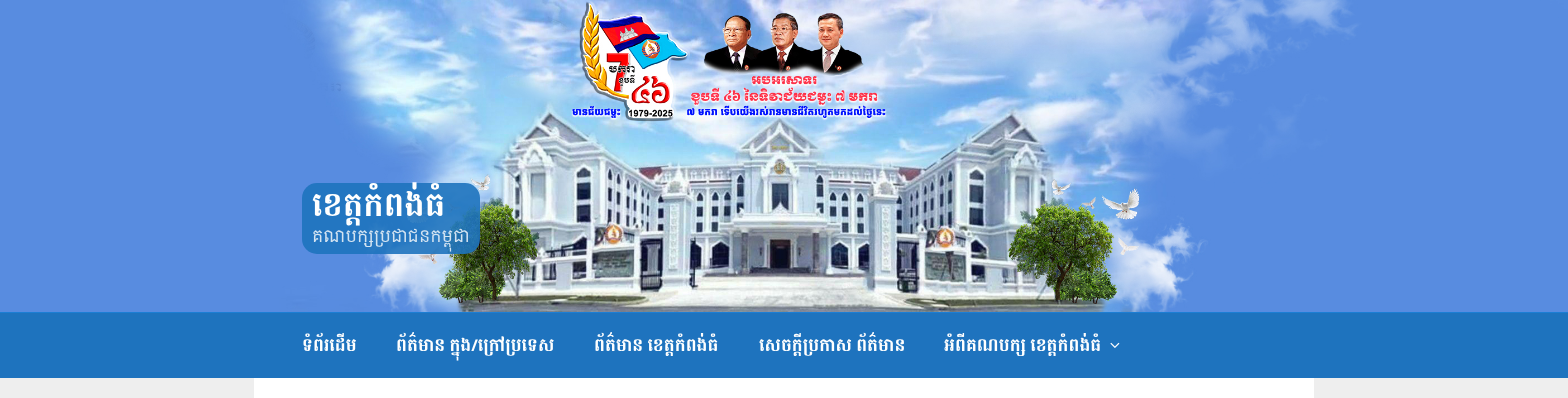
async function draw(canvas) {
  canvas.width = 1568
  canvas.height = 398
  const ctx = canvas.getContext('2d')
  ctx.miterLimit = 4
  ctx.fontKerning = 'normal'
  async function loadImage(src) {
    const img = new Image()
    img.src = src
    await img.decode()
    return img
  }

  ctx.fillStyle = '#fff'
  ctx.fillRect(0, 0, 1568, 398)
  ctx.drawImage(await loadImage('image0.png'), 0, 0, 1568, 312)
  ctx.fillStyle = '#1e73bee6'
  ctx.beginPath()
  ctx.roundRect(302, 183, 178, 71, 15)
  ctx.fill()
  ctx.font = 'bold 30px Battambang'
  ctx.fillStyle = '#fff'
  ctx.fillText('ខេត្តកំពង់ធំ', 312, 216)
  ctx.font = '16px Battambang'
  ctx.fillStyle = '#d4e4f2'
  ctx.fillText('គណបក្សប្រជាជនកម្ពុជា', 312, 242)
  ctx.fillStyle = '#1e73be'
  ctx.fillRect(0, 313, 1568, 65)
  ctx.fillStyle = '#1c7ed4'
  ctx.fillRect(0, 312, 1568, 1)
  ctx.font = 'bold 16px Battambang'
  ctx.fillStyle = '#fff'
  ctx.fillText('ទំព័រដើម', 302, 351)
  ctx.fillText('ព័ត៌មាន ក្នុង/ក្រៅប្រទេស', 396, 351)
  ctx.fillText('ព័ត៌មាន ខេត្តកំពង់ធំ', 594, 351)
  ctx.fillText('សេចក្តីប្រកាស ព័ត៌មាន', 759, 351)
  ctx.fillText('អំពីគណបក្ស ខេត្តកំពង់ធំ', 944, 351)
  ctx.drawImage(await loadImage('image1.png'), 1110, 342, 10, 6)
  ctx.fillStyle = '#eee'
  ctx.fillRect(0, 378, 1568, 20)
  ctx.fillStyle = '#fff'
  ctx.fillRect(254, 378, 1060, 20)
}

draw(document.querySelector('canvas'))
